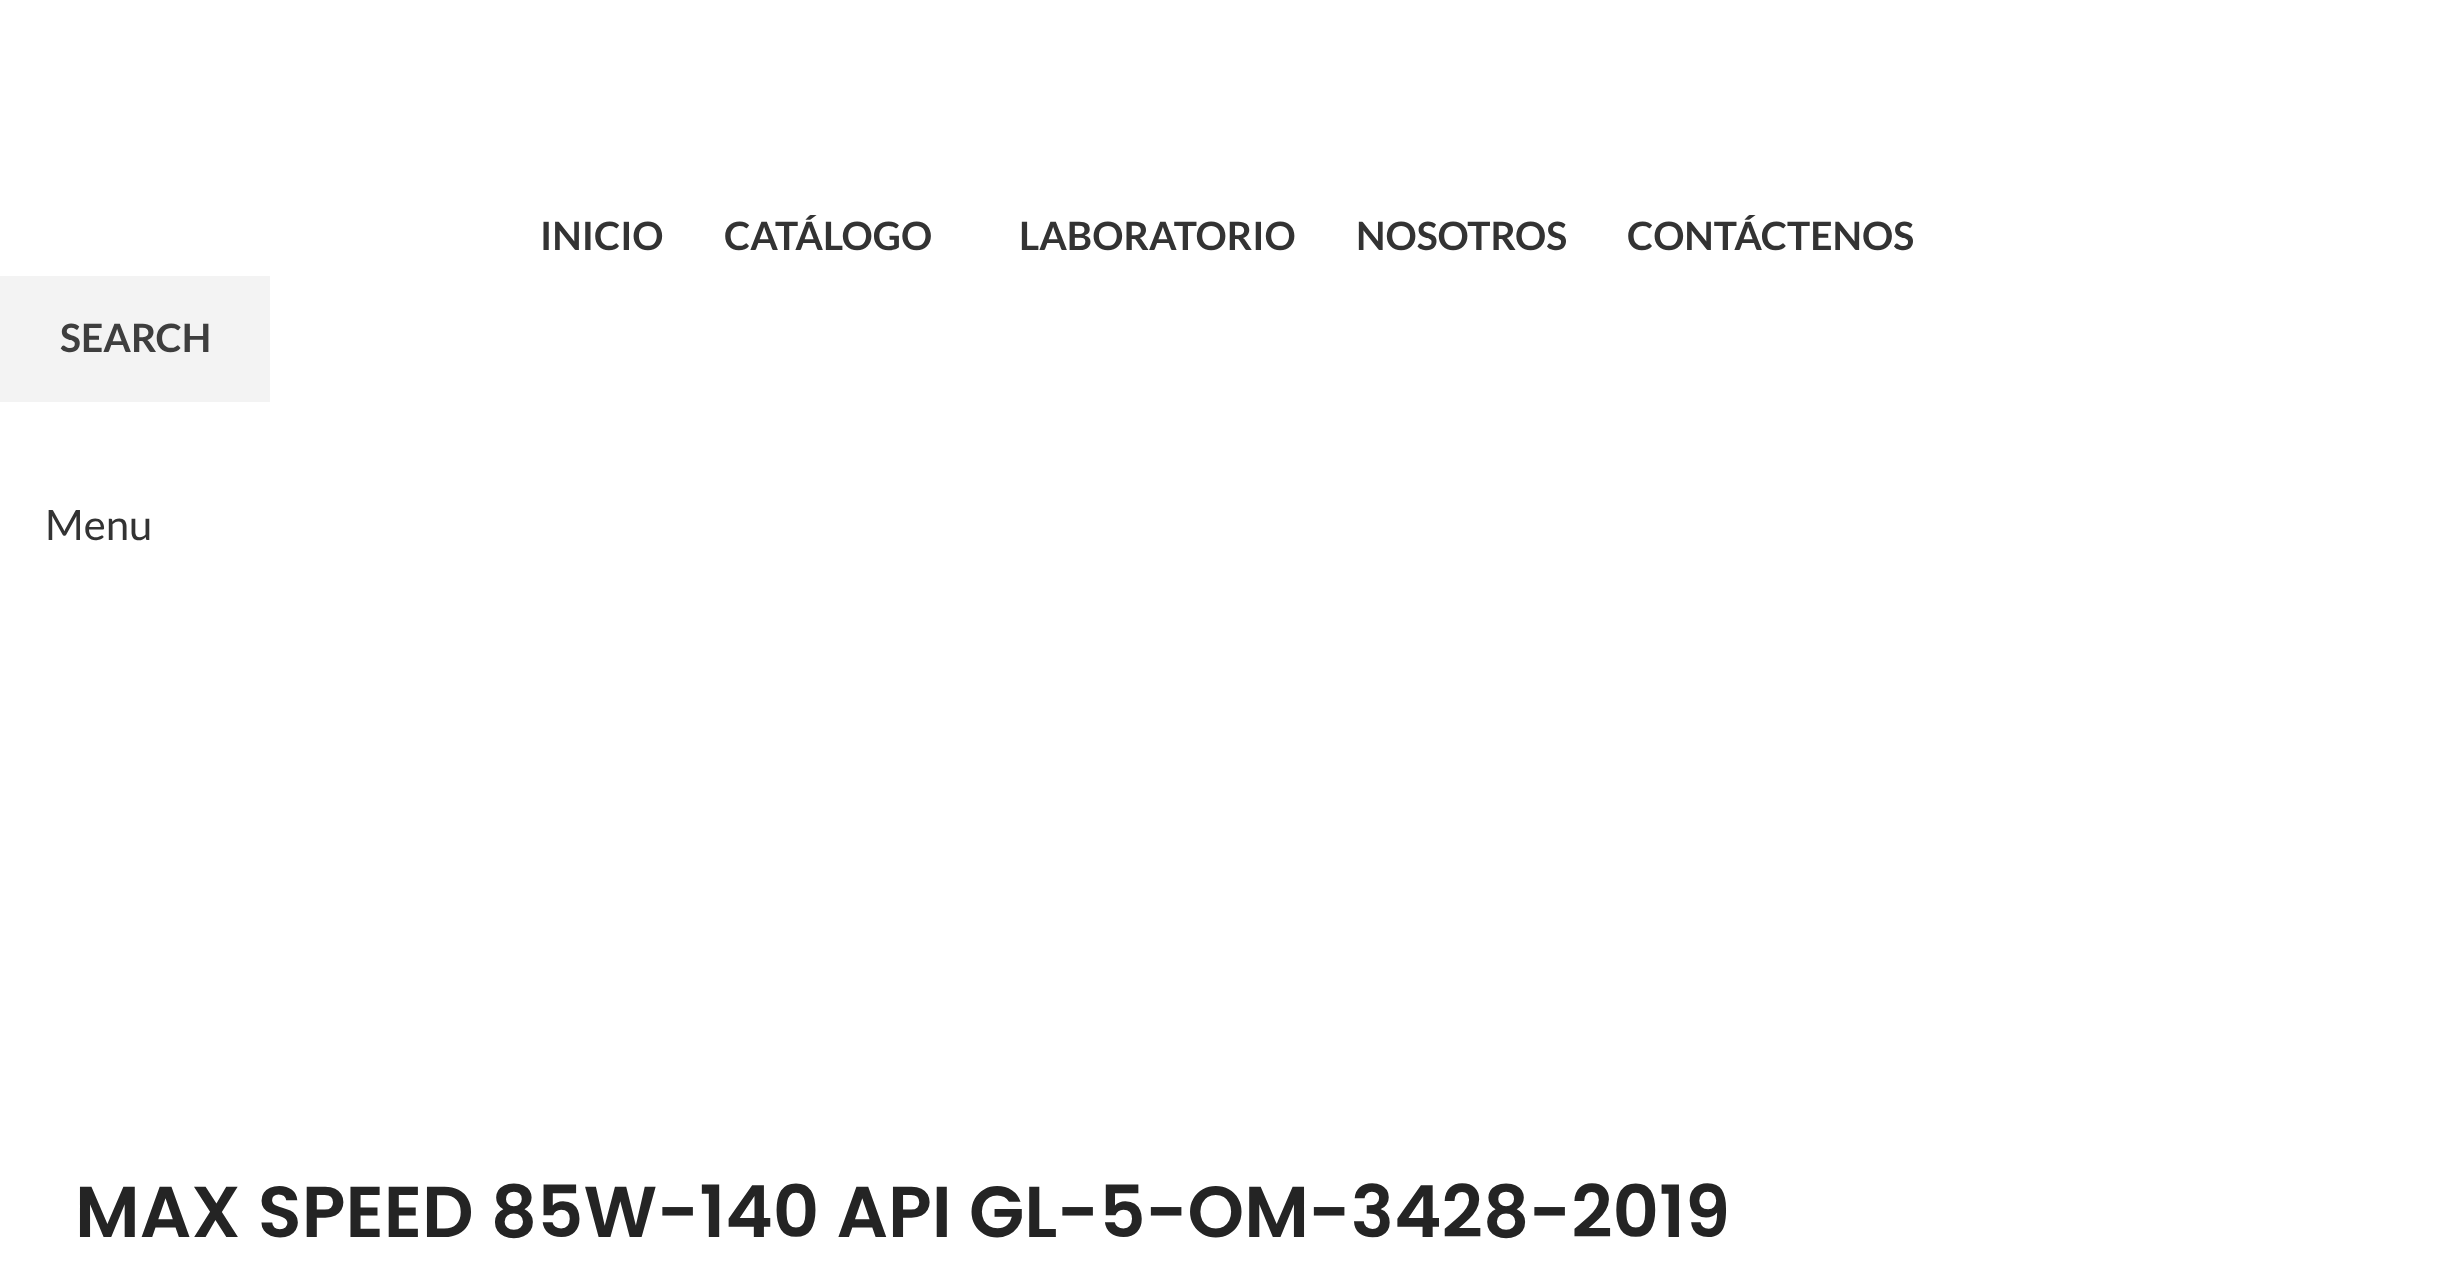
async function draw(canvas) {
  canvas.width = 2454
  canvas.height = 1280
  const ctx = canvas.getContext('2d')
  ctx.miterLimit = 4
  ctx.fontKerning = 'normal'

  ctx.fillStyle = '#fff'
  ctx.fillRect(0, 0, 2454, 1280)
  ctx.font = 'bold 39px Lato'
  ctx.fillStyle = '#333'
  ctx.fillText('INICIO', 540, 250)
  ctx.fillText('CATÁLOGO', 724, 250)
  ctx.fillText('LABORATORIO', 1019, 250)
  ctx.fillText('NOSOTROS', 1356, 250)
  ctx.fillText('CONTÁCTENOS', 1627, 250)
  ctx.font = '42px Lato'
  ctx.fillText('Menu', 45, 540)
  ctx.font = '600 72px Poppins'
  ctx.fillStyle = '#242424'
  ctx.fillText('MAX SPEED 85W-140 API GL-5-OM-3428-2019', 75, 1237)
  ctx.fillStyle = '#f3f3f3'
  ctx.fillRect(0, 276, 270, 126)
  ctx.font = 'bold 39px Lato'
  ctx.fillStyle = '#3e3e3e'
  ctx.fillText('SEARCH', 60, 352)
}

draw(document.querySelector('canvas'))
